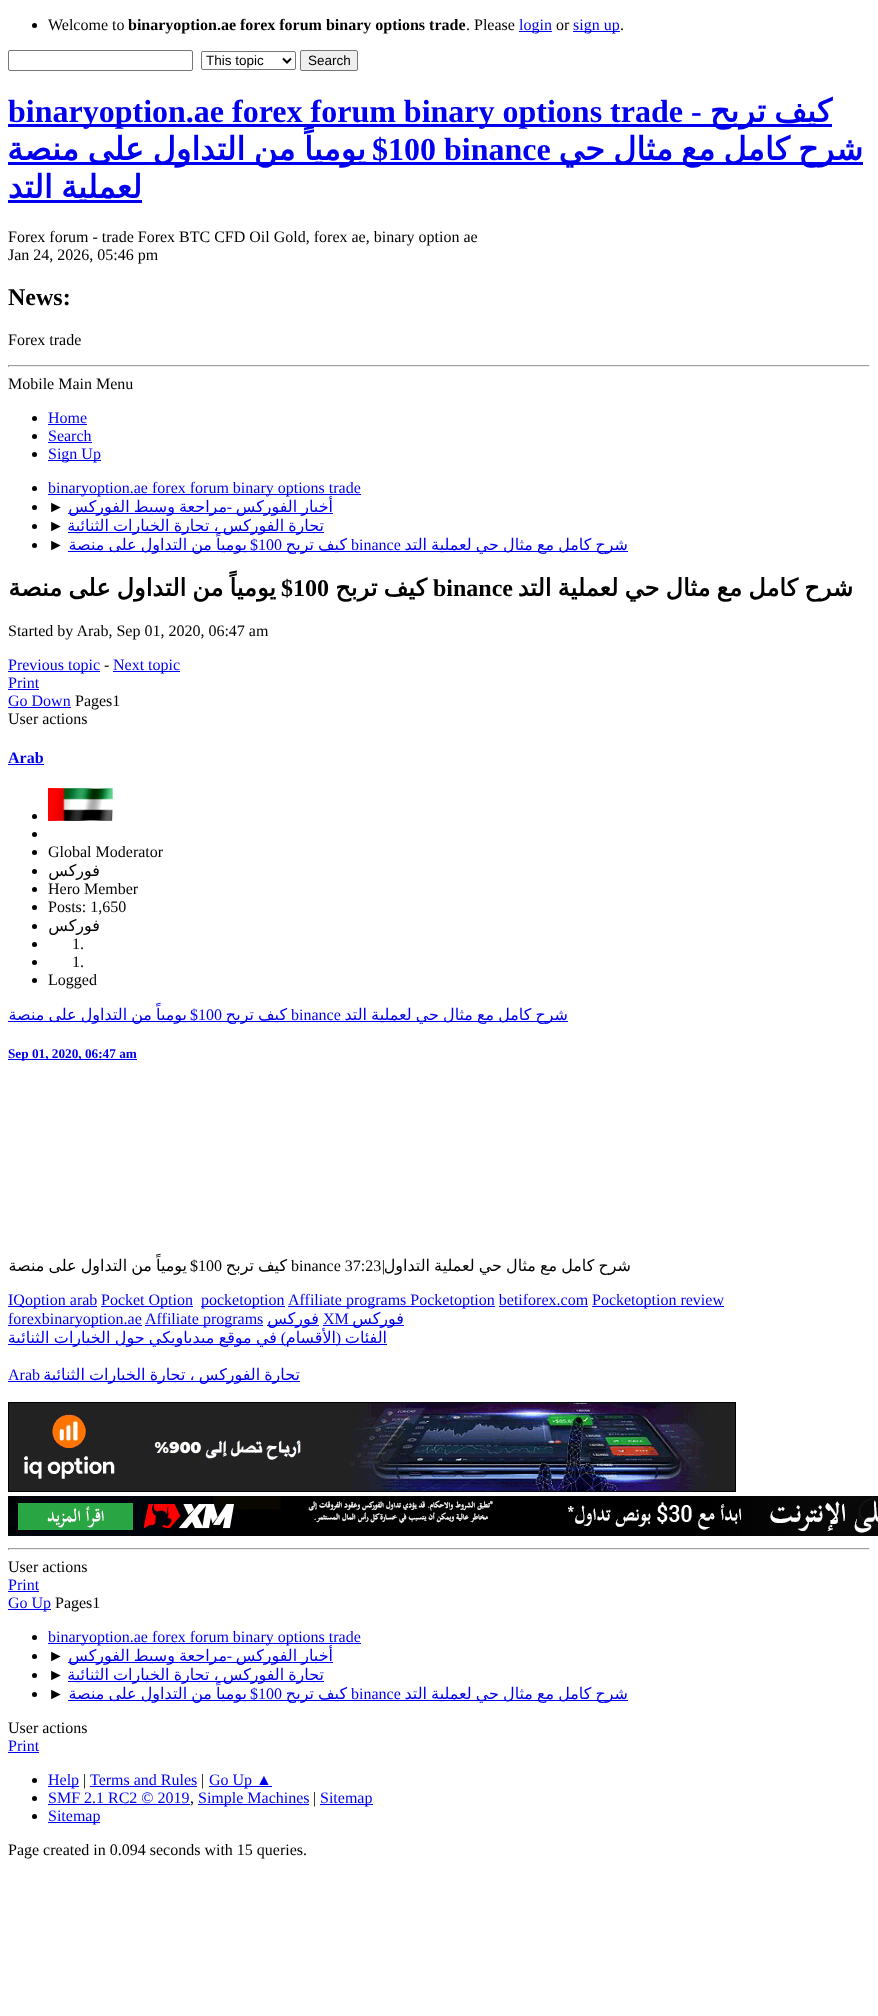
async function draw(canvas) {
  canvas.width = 878
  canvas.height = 2016
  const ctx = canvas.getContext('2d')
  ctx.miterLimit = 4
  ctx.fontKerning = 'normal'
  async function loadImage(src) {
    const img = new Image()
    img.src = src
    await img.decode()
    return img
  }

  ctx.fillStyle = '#fff'
  ctx.fillRect(0, 0, 878, 2016)
  ctx.fillStyle = '#000'
  ctx.beginPath()
  ctx.arc(34.5, 25.5, 2.5, 0, 2 * Math.PI)
  ctx.fill()
  ctx.font = '16px Liberation Serif'
  ctx.fillText('Welcome to', 48, 30)
  ctx.font = 'bold 16px Liberation Serif'
  ctx.fillText('binaryoption.ae forex forum binary options trade', 128, 30)
  ctx.font = '16px Liberation Serif'
  ctx.fillText('. Please', 466, 30)
  ctx.fillStyle = '#00e'
  ctx.fillRect(519, 31, 33, 1)
  ctx.fillText('login', 519, 30)
  ctx.fillStyle = '#000'
  ctx.fillText('or', 556, 30)
  ctx.fillStyle = '#00e'
  ctx.fillRect(573, 31, 47, 1)
  ctx.fillText('sign up', 573, 30)
  ctx.fillStyle = '#000'
  ctx.fillText('.', 620, 30)
  ctx.beginPath()
  ctx.roundRect(8.5, 50.5, 184, 20, 1.5)
  ctx.strokeStyle = '#767676'
  ctx.stroke()
  ctx.beginPath()
  ctx.roundRect(201.5, 51.5, 94, 18, 1.5)
  ctx.stroke()
  ctx.beginPath()
  ctx.moveTo(283, 58.5)
  ctx.lineTo(287, 62.5)
  ctx.lineTo(291, 58.5)
  ctx.strokeStyle = '#000'
  ctx.lineWidth = 2
  ctx.stroke()
  ctx.font = '13.5px Liberation Sans'
  ctx.fillText('This topic', 206, 65)
  ctx.fillStyle = '#efefef'
  ctx.beginPath()
  ctx.roundRect(300.5, 50.5, 57, 20, 1.5)
  ctx.fill()
  ctx.strokeStyle = '#767676'
  ctx.lineWidth = 1
  ctx.stroke()
  ctx.fillStyle = '#000'
  ctx.fillText('Search', 308, 65)
  ctx.fillStyle = '#00e'
  ctx.fillRect(8, 124, 824, 3)
  ctx.font = 'bold 32px Liberation Serif'
  ctx.fillText('binaryoption.ae forex forum binary options trade -', 8, 122)
  ctx.wordSpacing = '-2px'
  ctx.direction = 'rtl'
  ctx.font = 'bold 32px DejaVu Sans'
  ctx.fillText('كيف تربح', 832, 122)
  ctx.fillRect(8, 162, 855, 3)
  ctx.wordSpacing = '-1.5px'
  ctx.fillText('يومياً من التداول على منصة', 366, 160)
  ctx.wordSpacing = '0px'
  ctx.font = 'bold 32px Liberation Serif'
  ctx.fillText('$', 388, 160)
  ctx.direction = 'ltr'
  ctx.fillText('100 binance', 388, 160)
  ctx.wordSpacing = '-2px'
  ctx.direction = 'rtl'
  ctx.font = 'bold 32px DejaVu Sans'
  ctx.fillText('شرح كامل مع مثال حي', 863, 160)
  ctx.fillRect(8, 200, 134, 3)
  ctx.fillText('لعملية التد', 142, 198)
  ctx.wordSpacing = '0px'
  ctx.direction = 'ltr'
  ctx.font = '16px Liberation Serif'
  ctx.fillStyle = '#000'
  ctx.fillText('Forex forum - trade Forex BTC CFD Oil Gold, forex ae, binary option ae', 8, 242)
  ctx.fillText('Jan 24, 2026, 05:46 pm', 8, 260)
  ctx.font = 'bold 24px Liberation Serif'
  ctx.fillText('News:', 8, 305)
  ctx.font = '16px Liberation Serif'
  ctx.fillText('Forex trade', 8, 345)
  ctx.fillStyle = '#9f9f9f'
  ctx.fillRect(8, 365, 862, 1)
  ctx.fillStyle = '#eee'
  ctx.fillRect(869, 365, 1, 2)
  ctx.fillRect(8, 366, 862, 1)
  ctx.fillStyle = '#9f9f9f'
  ctx.fillRect(8, 365, 1, 2)
  ctx.fillStyle = '#000'
  ctx.fillText('Mobile Main Menu', 8, 389)
  ctx.beginPath()
  ctx.arc(34.5, 418.5, 2.5, 0, 2 * Math.PI)
  ctx.fill()
  ctx.fillStyle = '#00e'
  ctx.fillText('Home', 48, 423)
  ctx.fillRect(48, 424, 39, 1)
  ctx.fillStyle = '#000'
  ctx.beginPath()
  ctx.arc(34.5, 436.5, 2.5, 0, 2 * Math.PI)
  ctx.fill()
  ctx.fillStyle = '#00e'
  ctx.fillText('Search', 48, 441)
  ctx.fillRect(48, 442, 44, 1)
  ctx.fillStyle = '#000'
  ctx.beginPath()
  ctx.arc(34.5, 454.5, 2.5, 0, 2 * Math.PI)
  ctx.fill()
  ctx.fillStyle = '#00e'
  ctx.fillRect(48, 460, 53, 1)
  ctx.fillText('Sign Up', 48, 459)
  ctx.fillStyle = '#000'
  ctx.beginPath()
  ctx.arc(34.5, 488.5, 2.5, 0, 2 * Math.PI)
  ctx.fill()
  ctx.fillStyle = '#00e'
  ctx.fillRect(48, 494, 313, 1)
  ctx.fillText('binaryoption.ae forex forum binary options trade', 48, 493)
  ctx.fillStyle = '#000'
  ctx.beginPath()
  ctx.arc(34.5, 507.5, 2.5, 0, 2 * Math.PI)
  ctx.fill()
  ctx.fillText('►', 48, 512)
  ctx.fillStyle = '#00e'
  ctx.fillRect(68, 513, 265, 1)
  ctx.wordSpacing = '-1px'
  ctx.direction = 'rtl'
  ctx.font = '16px DejaVu Sans'
  ctx.fillText('مراجعة وسيط الفوركس', 227, 512)
  ctx.wordSpacing = '0px'
  ctx.font = '16px Liberation Serif'
  ctx.fillText('-', 232, 512)
  ctx.wordSpacing = '-1px'
  ctx.font = '16px DejaVu Sans'
  ctx.fillText('أخبار الفوركس', 333, 512)
  ctx.fillStyle = '#000'
  ctx.beginPath()
  ctx.arc(34.5, 526.5, 2.5, 0, 2 * Math.PI)
  ctx.fill()
  ctx.wordSpacing = '0px'
  ctx.direction = 'ltr'
  ctx.font = '16px Liberation Serif'
  ctx.fillText('►', 48, 531)
  ctx.fillStyle = '#00e'
  ctx.fillRect(68, 532, 256, 1)
  ctx.wordSpacing = '-1px'
  ctx.direction = 'rtl'
  ctx.font = '16px DejaVu Sans'
  ctx.fillText('تجارة الفوركس ، تجارة الخيارات الثنائية', 324, 531)
  ctx.fillStyle = '#000'
  ctx.beginPath()
  ctx.arc(34.5, 545.5, 2.5, 0, 2 * Math.PI)
  ctx.fill()
  ctx.wordSpacing = '0px'
  ctx.direction = 'ltr'
  ctx.font = '16px Liberation Serif'
  ctx.fillText('►', 48, 550)
  ctx.fillStyle = '#00e'
  ctx.fillRect(68, 551, 279, 1)
  ctx.wordSpacing = '-1px'
  ctx.direction = 'rtl'
  ctx.font = '16px DejaVu Sans'
  ctx.fillText('يومياً من التداول على منصة', 247, 550)
  ctx.wordSpacing = '0px'
  ctx.font = '16px Liberation Serif'
  ctx.fillText('$', 258, 550)
  ctx.direction = 'ltr'
  ctx.fillText('100', 258, 550)
  ctx.wordSpacing = '-1px'
  ctx.direction = 'rtl'
  ctx.font = '16px DejaVu Sans'
  ctx.fillText('كيف تربح', 347, 550)
  ctx.fillRect(347, 551, 281, 1)
  ctx.wordSpacing = '0px'
  ctx.direction = 'ltr'
  ctx.font = '16px Liberation Serif'
  ctx.fillText('binance', 351, 550)
  ctx.wordSpacing = '-1px'
  ctx.direction = 'rtl'
  ctx.font = '16px DejaVu Sans'
  ctx.fillText('شرح كامل مع مثال حي لعملية التد', 628, 550)
  ctx.wordSpacing = '-1.5px'
  ctx.font = 'bold 24px DejaVu Sans'
  ctx.fillStyle = '#000'
  ctx.fillText('يومياً من التداول على منصة', 276, 596)
  ctx.wordSpacing = '0px'
  ctx.font = 'bold 24px Liberation Serif'
  ctx.fillText('$', 293, 596)
  ctx.direction = 'ltr'
  ctx.fillText('100', 293, 596)
  ctx.wordSpacing = '-1.5px'
  ctx.direction = 'rtl'
  ctx.font = 'bold 24px DejaVu Sans'
  ctx.fillText('كيف تربح', 427, 596)
  ctx.wordSpacing = '0px'
  ctx.direction = 'ltr'
  ctx.font = 'bold 24px Liberation Serif'
  ctx.fillText('binance', 433, 596)
  ctx.wordSpacing = '-1.5px'
  ctx.direction = 'rtl'
  ctx.font = 'bold 24px DejaVu Sans'
  ctx.fillText('شرح كامل مع مثال حي لعملية التد', 853, 596)
  ctx.wordSpacing = '0px'
  ctx.direction = 'ltr'
  ctx.font = '16px Liberation Serif'
  ctx.fillText('Started by Arab, Sep 01, 2020, 06:47 am', 8, 636)
  ctx.fillStyle = '#00e'
  ctx.fillRect(8, 671, 92, 1)
  ctx.fillText('Previous topic', 8, 670)
  ctx.fillStyle = '#000'
  ctx.fillText('-', 104, 670)
  ctx.fillStyle = '#00e'
  ctx.fillRect(113, 671, 67, 1)
  ctx.fillText('Next topic', 113, 670)
  ctx.fillText('Print', 8, 688)
  ctx.fillRect(8, 689, 31, 1)
  ctx.fillText('Go Down', 8, 706)
  ctx.fillRect(8, 707, 63, 1)
  ctx.fillStyle = '#000'
  ctx.fillText('Pages1', 75, 706)
  ctx.fillText('User actions', 8, 724)
  ctx.font = 'bold 16px Liberation Serif'
  ctx.fillStyle = '#00e'
  ctx.fillText('Arab', 8, 763)
  ctx.fillRect(8, 764, 36, 1)
  ctx.fillStyle = '#000'
  ctx.beginPath()
  ctx.arc(34.5, 816.5, 2.5, 0, 2 * Math.PI)
  ctx.fill()
  ctx.drawImage(await loadImage('image0.png'), 48, 788, 65, 33)
  ctx.beginPath()
  ctx.arc(34.5, 834.5, 2.5, 0, 2 * Math.PI)
  ctx.fill()
  ctx.beginPath()
  ctx.arc(34.5, 852.5, 2.5, 0, 2 * Math.PI)
  ctx.fill()
  ctx.font = '16px Liberation Serif'
  ctx.fillText('Global Moderator', 48, 857)
  ctx.beginPath()
  ctx.arc(34.5, 871.5, 2.5, 0, 2 * Math.PI)
  ctx.fill()
  ctx.direction = 'rtl'
  ctx.font = '16px DejaVu Sans'
  ctx.fillText('فوركس', 100, 876)
  ctx.beginPath()
  ctx.arc(34.5, 889.5, 2.5, 0, 2 * Math.PI)
  ctx.fill()
  ctx.direction = 'ltr'
  ctx.font = '16px Liberation Serif'
  ctx.fillText('Hero Member', 48, 894)
  ctx.beginPath()
  ctx.arc(34.5, 907.5, 2.5, 0, 2 * Math.PI)
  ctx.fill()
  ctx.fillText('Posts: 1,650', 48, 912)
  ctx.beginPath()
  ctx.arc(34.5, 926.5, 2.5, 0, 2 * Math.PI)
  ctx.fill()
  ctx.direction = 'rtl'
  ctx.font = '16px DejaVu Sans'
  ctx.fillText('فوركس', 100, 931)
  ctx.beginPath()
  ctx.arc(34.5, 944.5, 2.5, 0, 2 * Math.PI)
  ctx.fill()
  ctx.direction = 'ltr'
  ctx.font = '16px Liberation Serif'
  ctx.fillText('1.', 72, 949)
  ctx.beginPath()
  ctx.arc(34.5, 962.5, 2.5, 0, 2 * Math.PI)
  ctx.fill()
  ctx.fillText('1.', 72, 967)
  ctx.beginPath()
  ctx.arc(34.5, 980.5, 2.5, 0, 2 * Math.PI)
  ctx.fill()
  ctx.fillText('Logged', 48, 985)
  ctx.fillStyle = '#00e'
  ctx.fillRect(8, 1021, 279, 1)
  ctx.wordSpacing = '-1px'
  ctx.direction = 'rtl'
  ctx.font = '16px DejaVu Sans'
  ctx.fillText('يومياً من التداول على منصة', 187, 1020)
  ctx.wordSpacing = '0px'
  ctx.font = '16px Liberation Serif'
  ctx.fillText('$', 198, 1020)
  ctx.direction = 'ltr'
  ctx.fillText('100', 198, 1020)
  ctx.wordSpacing = '-1px'
  ctx.direction = 'rtl'
  ctx.font = '16px DejaVu Sans'
  ctx.fillText('كيف تربح', 287, 1020)
  ctx.fillRect(287, 1021, 281, 1)
  ctx.wordSpacing = '0px'
  ctx.direction = 'ltr'
  ctx.font = '16px Liberation Serif'
  ctx.fillText('binance', 291, 1020)
  ctx.wordSpacing = '-1px'
  ctx.direction = 'rtl'
  ctx.font = '16px DejaVu Sans'
  ctx.fillText('شرح كامل مع مثال حي لعملية التد', 568, 1020)
  ctx.fillRect(8, 1059, 129, 1)
  ctx.wordSpacing = '0px'
  ctx.direction = 'ltr'
  ctx.font = 'bold 13.25px Liberation Serif'
  ctx.fillText('Sep 01, 2020, 06:47 am', 8, 1058)
  ctx.wordSpacing = '-1px'
  ctx.direction = 'rtl'
  ctx.font = '16px DejaVu Sans'
  ctx.fillStyle = '#000'
  ctx.fillText('يومياً من التداول على منصة', 187, 1271)
  ctx.wordSpacing = '0px'
  ctx.font = '16px Liberation Serif'
  ctx.fillText('$', 198, 1271)
  ctx.direction = 'ltr'
  ctx.fillText('100', 198, 1271)
  ctx.wordSpacing = '-1px'
  ctx.direction = 'rtl'
  ctx.font = '16px DejaVu Sans'
  ctx.fillText('كيف تربح', 287, 1271)
  ctx.wordSpacing = '0px'
  ctx.direction = 'ltr'
  ctx.font = '16px Liberation Serif'
  ctx.fillText('binance 37:23', 291, 1271)
  ctx.direction = 'rtl'
  ctx.fillText('|', 385, 1271)
  ctx.wordSpacing = '-1px'
  ctx.font = '16px DejaVu Sans'
  ctx.fillText('شرح كامل مع مثال حي لعملية التداول', 631, 1271)
  ctx.fillStyle = '#00e'
  ctx.fillRect(8, 1306, 89, 1)
  ctx.wordSpacing = '0px'
  ctx.direction = 'ltr'
  ctx.font = '16px Liberation Serif'
  ctx.fillText('IQoption arab', 8, 1305)
  ctx.fillRect(101, 1306, 92, 1)
  ctx.fillText('Pocket Option', 101, 1305)
  ctx.fillRect(201, 1306, 84, 1)
  ctx.fillText('pocketoption', 201, 1305)
  ctx.fillRect(288, 1306, 207, 1)
  ctx.fillText('Affiliate programs Pocketoption betiforex.com', 288, 1305)
  ctx.fillRect(592, 1306, 132, 1)
  ctx.fillText('Pocketoption review', 592, 1305)
  ctx.fillRect(499, 1306, 89, 1)
  ctx.fillRect(8, 1325, 134, 1)
  ctx.fillText('forexbinaryoption.ae', 8, 1324)
  ctx.fillRect(145, 1325, 118, 1)
  ctx.fillText('Affiliate programs', 145, 1324)
  ctx.fillRect(267, 1325, 52, 1)
  ctx.direction = 'rtl'
  ctx.font = '16px DejaVu Sans'
  ctx.fillText('فوركس', 319, 1324)
  ctx.direction = 'ltr'
  ctx.font = '16px Liberation Serif'
  ctx.fillText('XM', 323, 1324)
  ctx.fillRect(323, 1325, 81, 1)
  ctx.direction = 'rtl'
  ctx.font = '16px DejaVu Sans'
  ctx.fillText('فوركس', 404, 1324)
  ctx.fillRect(8, 1344, 379, 1)
  ctx.wordSpacing = '-0.75px'
  ctx.fillText('في موقع ميدياويكي حول الخيارات الثنائية', 277, 1343)
  ctx.wordSpacing = '0px'
  ctx.font = '16px Liberation Serif'
  ctx.fillText(')', 286, 1343)
  ctx.font = '16px DejaVu Sans'
  ctx.fillText('الأقسام', 336, 1343)
  ctx.font = '16px Liberation Serif'
  ctx.fillText('(', 341, 1343)
  ctx.font = '16px DejaVu Sans'
  ctx.fillText('الفئات', 387, 1343)
  ctx.direction = 'ltr'
  ctx.font = '16px Liberation Serif'
  ctx.fillText('Arab', 8, 1380)
  ctx.fillRect(8, 1381, 292, 1)
  ctx.wordSpacing = '-1px'
  ctx.direction = 'rtl'
  ctx.font = '16px DejaVu Sans'
  ctx.fillText('تجارة الفوركس ، تجارة الخيارات الثنائية', 300, 1380)
  ctx.drawImage(await loadImage('image1.png'), 8, 1402, 728, 90)
  ctx.drawImage(await loadImage('image2.png'), 8, 1496, 870, 40)
  ctx.fillStyle = '#9f9f9f'
  ctx.fillRect(8, 1548, 862, 1)
  ctx.fillStyle = '#eee'
  ctx.fillRect(869, 1548, 1, 2)
  ctx.fillRect(8, 1549, 862, 1)
  ctx.fillStyle = '#9f9f9f'
  ctx.fillRect(8, 1548, 1, 2)
  ctx.wordSpacing = '0px'
  ctx.direction = 'ltr'
  ctx.font = '16px Liberation Serif'
  ctx.fillStyle = '#000'
  ctx.fillText('User actions', 8, 1572)
  ctx.fillStyle = '#00e'
  ctx.fillText('Print', 8, 1590)
  ctx.fillRect(8, 1591, 31, 1)
  ctx.fillRect(8, 1609, 43, 1)
  ctx.fillText('Go Up', 8, 1608)
  ctx.fillStyle = '#000'
  ctx.fillText('Pages1', 55, 1608)
  ctx.beginPath()
  ctx.arc(34.5, 1637.5, 2.5, 0, 2 * Math.PI)
  ctx.fill()
  ctx.fillStyle = '#00e'
  ctx.fillRect(48, 1643, 313, 1)
  ctx.fillText('binaryoption.ae forex forum binary options trade', 48, 1642)
  ctx.fillStyle = '#000'
  ctx.beginPath()
  ctx.arc(34.5, 1656.5, 2.5, 0, 2 * Math.PI)
  ctx.fill()
  ctx.fillText('►', 48, 1661)
  ctx.fillStyle = '#00e'
  ctx.fillRect(68, 1662, 265, 1)
  ctx.wordSpacing = '-1px'
  ctx.direction = 'rtl'
  ctx.font = '16px DejaVu Sans'
  ctx.fillText('مراجعة وسيط الفوركس', 227, 1661)
  ctx.wordSpacing = '0px'
  ctx.font = '16px Liberation Serif'
  ctx.fillText('-', 232, 1661)
  ctx.wordSpacing = '-1px'
  ctx.font = '16px DejaVu Sans'
  ctx.fillText('أخبار الفوركس', 333, 1661)
  ctx.fillStyle = '#000'
  ctx.beginPath()
  ctx.arc(34.5, 1675.5, 2.5, 0, 2 * Math.PI)
  ctx.fill()
  ctx.wordSpacing = '0px'
  ctx.direction = 'ltr'
  ctx.font = '16px Liberation Serif'
  ctx.fillText('►', 48, 1680)
  ctx.fillStyle = '#00e'
  ctx.fillRect(68, 1681, 256, 1)
  ctx.wordSpacing = '-1px'
  ctx.direction = 'rtl'
  ctx.font = '16px DejaVu Sans'
  ctx.fillText('تجارة الفوركس ، تجارة الخيارات الثنائية', 324, 1680)
  ctx.fillStyle = '#000'
  ctx.beginPath()
  ctx.arc(34.5, 1694.5, 2.5, 0, 2 * Math.PI)
  ctx.fill()
  ctx.wordSpacing = '0px'
  ctx.direction = 'ltr'
  ctx.font = '16px Liberation Serif'
  ctx.fillText('►', 48, 1699)
  ctx.fillStyle = '#00e'
  ctx.fillRect(68, 1700, 279, 1)
  ctx.wordSpacing = '-1px'
  ctx.direction = 'rtl'
  ctx.font = '16px DejaVu Sans'
  ctx.fillText('يومياً من التداول على منصة', 247, 1699)
  ctx.wordSpacing = '0px'
  ctx.font = '16px Liberation Serif'
  ctx.fillText('$', 258, 1699)
  ctx.direction = 'ltr'
  ctx.fillText('100', 258, 1699)
  ctx.wordSpacing = '-1px'
  ctx.direction = 'rtl'
  ctx.font = '16px DejaVu Sans'
  ctx.fillText('كيف تربح', 347, 1699)
  ctx.fillRect(347, 1700, 281, 1)
  ctx.wordSpacing = '0px'
  ctx.direction = 'ltr'
  ctx.font = '16px Liberation Serif'
  ctx.fillText('binance', 351, 1699)
  ctx.wordSpacing = '-1px'
  ctx.direction = 'rtl'
  ctx.font = '16px DejaVu Sans'
  ctx.fillText('شرح كامل مع مثال حي لعملية التد', 628, 1699)
  ctx.wordSpacing = '0px'
  ctx.direction = 'ltr'
  ctx.font = '16px Liberation Serif'
  ctx.fillStyle = '#000'
  ctx.fillText('User actions', 8, 1733)
  ctx.fillStyle = '#00e'
  ctx.fillText('Print', 8, 1751)
  ctx.fillRect(8, 1752, 31, 1)
  ctx.fillStyle = '#000'
  ctx.beginPath()
  ctx.arc(34.5, 1780.5, 2.5, 0, 2 * Math.PI)
  ctx.fill()
  ctx.fillStyle = '#00e'
  ctx.fillRect(48, 1786, 31, 1)
  ctx.fillText('Help', 48, 1785)
  ctx.fillStyle = '#000'
  ctx.fillText('|', 83, 1785)
  ctx.fillStyle = '#00e'
  ctx.fillText('Terms and Rules', 90, 1785)
  ctx.fillRect(90, 1786, 107, 1)
  ctx.fillStyle = '#000'
  ctx.fillText('|', 201, 1785)
  ctx.fillStyle = '#00e'
  ctx.fillRect(209, 1786, 63, 1)
  ctx.fillText('Go Up ▲', 209, 1785)
  ctx.fillStyle = '#000'
  ctx.beginPath()
  ctx.arc(34.5, 1798.5, 2.5, 0, 2 * Math.PI)
  ctx.fill()
  ctx.fillStyle = '#00e'
  ctx.fillText('SMF 2.1 RC2 © 2019', 48, 1803)
  ctx.fillRect(48, 1804, 142, 1)
  ctx.fillRect(198, 1804, 111, 1)
  ctx.fillText('Simple Machines', 198, 1803)
  ctx.fillStyle = '#000'
  ctx.fillText('|', 313, 1803)
  ctx.fillStyle = '#00e'
  ctx.fillRect(320, 1804, 53, 1)
  ctx.fillText('Sitemap', 320, 1803)
  ctx.fillStyle = '#000'
  ctx.fillText(',', 190, 1803)
  ctx.beginPath()
  ctx.arc(34.5, 1816.5, 2.5, 0, 2 * Math.PI)
  ctx.fill()
  ctx.fillStyle = '#00e'
  ctx.fillRect(48, 1822, 52, 1)
  ctx.fillText('Sitemap', 48, 1821)
  ctx.fillStyle = '#000'
  ctx.fillText('Page created in 0.094 seconds with 15 queries.', 8, 1855)
}

draw(document.querySelector('canvas'))
